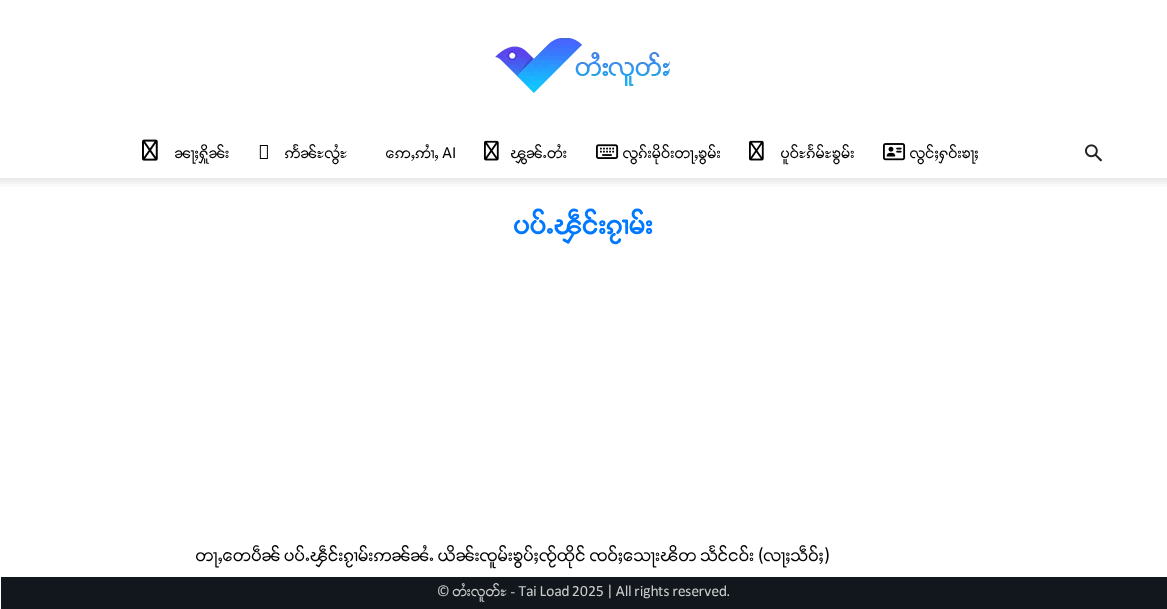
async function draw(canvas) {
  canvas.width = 1167
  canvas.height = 609
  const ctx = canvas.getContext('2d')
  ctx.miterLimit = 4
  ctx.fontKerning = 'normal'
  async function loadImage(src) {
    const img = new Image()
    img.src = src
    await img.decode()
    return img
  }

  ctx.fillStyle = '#fff'
  ctx.fillRect(0, 0, 1167, 609)
  ctx.drawImage(await loadImage('image0.png'), 495, 38, 175, 55)
  ctx.drawImage(await loadImage('image1.png'), 142, 139, 16, 22)
  ctx.font = '14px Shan'
  ctx.fillStyle = '#000'
  ctx.fillText('ၼႃႈႁိူၼ်း', 175, 158)
  ctx.drawImage(await loadImage('image2.png'), 259, 145, 9, 14)
  ctx.fillText('ဢႅၼ်ႊလွႆႊ', 285, 158)
  ctx.fillText('ဢေႇဢၢႆႇ AI', 386, 158)
  ctx.drawImage(await loadImage('image3.png'), 484, 140, 15, 21)
  ctx.fillText('ၾွၼ်ႉတႆး', 511, 158)
  ctx.drawImage(await loadImage('image4.png'), 596, 144, 23, 15)
  ctx.fillText('လွၵ်းမိုဝ်းတႃႇၶွမ်း', 623, 158)
  ctx.drawImage(await loadImage('image3.png'), 749, 140, 15, 21)
  ctx.fillText('ပူဝ်ႊၵႅမ်ႊၶွမ်း', 781, 158)
  ctx.drawImage(await loadImage('image5.png'), 883, 143, 23, 18)
  ctx.fillText('လွင်ႈႁဝ်းၶႃႈ', 910, 158)
  ctx.drawImage(await loadImage('image6.png'), 1085, 144, 17, 18)
  ctx.drawImage(await loadImage('image7.png'), 0, 178, 1167, 9)
  ctx.save()
  ctx.beginPath()
  ctx.moveTo(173, 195)
  ctx.lineTo(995, 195)
  ctx.lineTo(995, 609)
  ctx.lineTo(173, 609)
  ctx.closePath()
  ctx.moveTo(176, 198)
  ctx.lineTo(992, 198)
  ctx.lineTo(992, 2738)
  ctx.lineTo(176, 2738)
  ctx.closePath()
  ctx.clip('evenodd')
  ctx.fillStyle = '#888'
  ctx.filter = 'blur(0.5px)'
  ctx.beginPath()
  ctx.rect(176, 198, 816, 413)
  ctx.fill()
  ctx.filter = 'none'
  ctx.restore()
  ctx.font = 'bold 25px Shan'
  ctx.fillStyle = '#0078ff'
  ctx.fillText('ပပ်ႉၾဵင်းၵႂၢမ်း', 514, 234)
  ctx.font = '16px Shan'
  ctx.fillStyle = '#000'
  ctx.fillText('တႃႇတေပဵၼ် ပပ်ႉၾဵင်းၵႂၢမ်းဢၼ်ၼႆႉ ယိၼ်းၸူမ်းၶွပ်ႈၸႂ်ထိုင် ၸဝ်ႈသေႃးၽိတ သႅင်ငဝ်း (လႃႈသဵဝ်ႈ)', 196, 561)
  ctx.fillStyle = '#11171c'
  ctx.fillRect(1, 577, 1166, 32)
  ctx.font = '13px Shan'
  ctx.fillStyle = '#ccc'
  ctx.fillText('© တႆးလူတ်ႊ - Tai Load 2025 | All rights reserved.', 437, 596)
}

draw(document.querySelector('canvas'))
